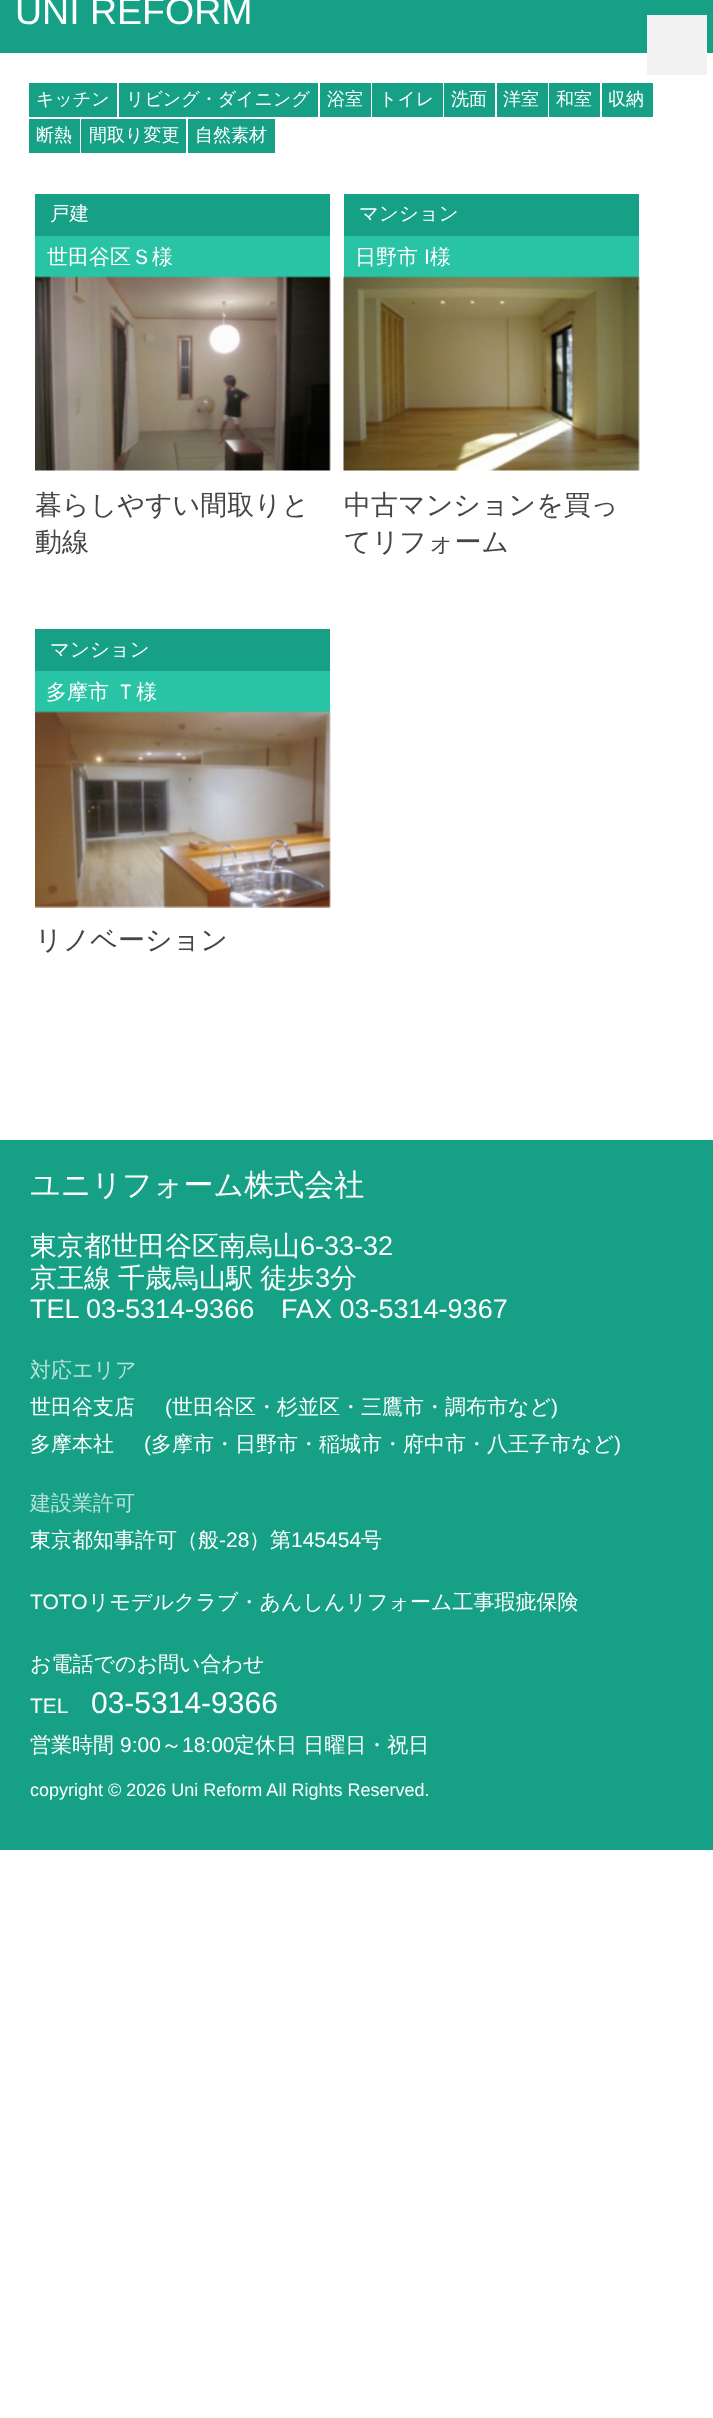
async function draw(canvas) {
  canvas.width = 713
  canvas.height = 2418
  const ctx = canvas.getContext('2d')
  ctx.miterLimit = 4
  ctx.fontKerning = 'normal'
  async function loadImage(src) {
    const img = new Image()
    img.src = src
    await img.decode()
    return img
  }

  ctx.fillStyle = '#fff'
  ctx.fillRect(0, 0, 713, 2418)
  ctx.fillStyle = '#16a085'
  ctx.fillRect(0, 0, 713, 53)
  ctx.font = '37.5px Liberation Sans'
  ctx.fillStyle = '#fff'
  ctx.fillText('UNI REFORM', 15, 24)
  ctx.fillStyle = '#f2f2f2'
  ctx.fillRect(647, 15, 60, 60)
  ctx.fillStyle = '#16a085'
  ctx.fillRect(29, 83, 88, 34)
  ctx.font = '500 18px WenQuanYi Zen Hei'
  ctx.fillStyle = '#fff'
  ctx.fillText('キッチン', 36, 105)
  ctx.fillStyle = '#16a085'
  ctx.fillRect(119, 83, 199, 34)
  ctx.fillStyle = '#fff'
  ctx.fillText('リビング・ダイニング', 126, 105)
  ctx.fillStyle = '#16a085'
  ctx.fillRect(320, 83, 51, 34)
  ctx.fillStyle = '#fff'
  ctx.fillText('浴室', 327, 105)
  ctx.fillStyle = '#16a085'
  ctx.fillRect(372, 83, 71, 34)
  ctx.fillStyle = '#fff'
  ctx.fillText('トイレ', 379, 105)
  ctx.fillStyle = '#16a085'
  ctx.fillRect(444, 83, 51, 34)
  ctx.fillStyle = '#fff'
  ctx.fillText('洗面', 451, 105)
  ctx.fillStyle = '#16a085'
  ctx.fillRect(497, 83, 51, 34)
  ctx.fillStyle = '#fff'
  ctx.fillText('洋室', 503, 105)
  ctx.fillStyle = '#16a085'
  ctx.fillRect(549, 83, 51, 34)
  ctx.fillStyle = '#fff'
  ctx.fillText('和室', 556, 105)
  ctx.fillStyle = '#16a085'
  ctx.fillRect(602, 83, 51, 34)
  ctx.fillStyle = '#fff'
  ctx.fillText('収納', 608, 105)
  ctx.fillStyle = '#16a085'
  ctx.fillRect(29, 119, 51, 34)
  ctx.fillStyle = '#fff'
  ctx.fillText('断熱', 36, 141)
  ctx.fillStyle = '#16a085'
  ctx.fillRect(81, 119, 105, 34)
  ctx.fillStyle = '#fff'
  ctx.fillText('間取り変更', 89, 141)
  ctx.fillStyle = '#16a085'
  ctx.fillRect(188, 119, 87, 34)
  ctx.fillStyle = '#fff'
  ctx.fillText('自然素材', 195, 141)
  ctx.fillStyle = '#29c3a5'
  ctx.fillRect(35, 236, 295, 42)
  ctx.fillStyle = '#16a085'
  ctx.fillRect(35, 194, 295, 42)
  ctx.font = '500 19.5px WenQuanYi Zen Hei'
  ctx.fillStyle = '#fff'
  ctx.fillText('戸建', 50, 220)
  ctx.font = '500 21px WenQuanYi Zen Hei'
  ctx.fillText('世田谷区Ｓ様', 47, 264)
  ctx.drawImage(await loadImage('image0.png'), 35, 276, 296, 195)
  ctx.font = '500 27px WenQuanYi Zen Hei'
  ctx.fillStyle = '#454545'
  ctx.fillText('暮らしやすい間取りと', 35, 514)
  ctx.fillText('動線', 35, 551)
  ctx.fillStyle = '#29c3a5'
  ctx.fillRect(344, 236, 295, 42)
  ctx.fillStyle = '#16a085'
  ctx.fillRect(344, 194, 295, 42)
  ctx.font = '500 19.5px WenQuanYi Zen Hei'
  ctx.fillStyle = '#fff'
  ctx.fillText('マンション', 359, 220)
  ctx.font = '500 21px WenQuanYi Zen Hei'
  ctx.fillText('日野市', 355, 264)
  ctx.font = '21px Liberation Sans'
  ctx.fillText('I', 424, 264)
  ctx.font = '500 21px WenQuanYi Zen Hei'
  ctx.fillText('様', 430, 264)
  ctx.drawImage(await loadImage('image1.png'), 343, 276, 297, 195)
  ctx.font = '500 27px WenQuanYi Zen Hei'
  ctx.fillStyle = '#454545'
  ctx.fillText('中古マンションを買っ', 344, 514)
  ctx.fillText('てリフォーム', 344, 551)
  ctx.fillStyle = '#29c3a5'
  ctx.fillRect(35, 671, 295, 42)
  ctx.fillStyle = '#16a085'
  ctx.fillRect(35, 629, 295, 42)
  ctx.font = '500 19.5px WenQuanYi Zen Hei'
  ctx.fillStyle = '#fff'
  ctx.fillText('マンション', 50, 656)
  ctx.font = '500 21px WenQuanYi Zen Hei'
  ctx.fillText('多摩市 Ｔ様', 46, 699)
  ctx.drawImage(await loadImage('image2.png'), 35, 711, 296, 197)
  ctx.font = '500 27px WenQuanYi Zen Hei'
  ctx.fillStyle = '#454545'
  ctx.fillText('リノベーション', 35, 949)
  ctx.fillStyle = '#16a085'
  ctx.fillRect(0, 1140, 713, 710)
  ctx.font = '500 30px WenQuanYi Zen Hei'
  ctx.fillStyle = '#fff'
  ctx.fillText('ユニリフォーム株式会社', 30, 1195)
  ctx.font = '500 27px WenQuanYi Zen Hei'
  ctx.fillText('東京都世田谷区南烏山', 30, 1255)
  ctx.font = '27px Liberation Sans'
  ctx.fillText('6-33-32', 300, 1255)
  ctx.wordSpacing = '-1px'
  ctx.font = '500 27px WenQuanYi Zen Hei'
  ctx.fillText('京王線 千歳烏山駅 徒歩', 30, 1287)
  ctx.wordSpacing = '0px'
  ctx.font = '27px Liberation Sans'
  ctx.fillText('3', 315, 1287)
  ctx.font = '500 27px WenQuanYi Zen Hei'
  ctx.fillText('分', 330, 1287)
  ctx.font = '27px Liberation Sans'
  ctx.fillText('TEL 03-5314-9366', 30, 1318)
  ctx.fillText('FAX 03-5314-9367', 281, 1318)
  ctx.font = '500 21px WenQuanYi Zen Hei'
  ctx.fillStyle = '#b9e3da'
  ctx.fillText('対応エリア', 30, 1377)
  ctx.fillStyle = '#fff'
  ctx.fillText('世田谷支店', 30, 1414)
  ctx.font = '21px Liberation Sans'
  ctx.fillText('(', 165, 1414)
  ctx.font = '500 21px WenQuanYi Zen Hei'
  ctx.fillText('世田谷区・杉並区・三鷹市・調布市など', 172, 1414)
  ctx.font = '21px Liberation Sans'
  ctx.fillText(')', 551, 1414)
  ctx.font = '500 21px WenQuanYi Zen Hei'
  ctx.fillText('多摩本社', 30, 1451)
  ctx.font = '21px Liberation Sans'
  ctx.fillText('(', 144, 1451)
  ctx.font = '500 21px WenQuanYi Zen Hei'
  ctx.fillText('多摩市・日野市・稲城市・府中市・八王子市など', 151, 1451)
  ctx.font = '21px Liberation Sans'
  ctx.fillText(')', 614, 1451)
  ctx.font = '500 21px WenQuanYi Zen Hei'
  ctx.fillStyle = '#b9e3da'
  ctx.fillText('建設業許可', 30, 1510)
  ctx.fillStyle = '#fff'
  ctx.fillText('東京都知事許可（般', 30, 1547)
  ctx.font = '21px Liberation Sans'
  ctx.fillText('‐28', 219, 1547)
  ctx.font = '500 21px WenQuanYi Zen Hei'
  ctx.fillText('）第', 249, 1547)
  ctx.font = '21px Liberation Sans'
  ctx.fillText('145454', 291, 1547)
  ctx.font = '500 21px WenQuanYi Zen Hei'
  ctx.fillText('号', 361, 1547)
  ctx.font = '21px Liberation Sans'
  ctx.fillText('TOTO', 30, 1609)
  ctx.font = '500 21px WenQuanYi Zen Hei'
  ctx.fillText('リモデルクラブ・あんしんリフォーム工事瑕疵保険', 88, 1609)
  ctx.fillText('お電話でのお問い合わせ', 30, 1671)
  ctx.font = '21px Liberation Sans'
  ctx.fillText('TEL', 30, 1713)
  ctx.font = '30px Liberation Sans'
  ctx.fillText('03-5314-9366', 91, 1713)
  ctx.font = '500 21px WenQuanYi Zen Hei'
  ctx.fillText('営業時間', 30, 1752)
  ctx.font = '21px Liberation Sans'
  ctx.fillText('9:00', 120, 1752)
  ctx.font = '500 21px WenQuanYi Zen Hei'
  ctx.fillText('～', 161, 1752)
  ctx.font = '21px Liberation Sans'
  ctx.fillText('18:00', 182, 1752)
  ctx.font = '500 21px WenQuanYi Zen Hei'
  ctx.fillText('定休日 日曜日・祝日', 234, 1752)
  ctx.font = '18px Liberation Sans'
  ctx.fillText('copyright © 2026 Uni Reform All Rights Reserved.', 30, 1796)
}

draw(document.querySelector('canvas'))
